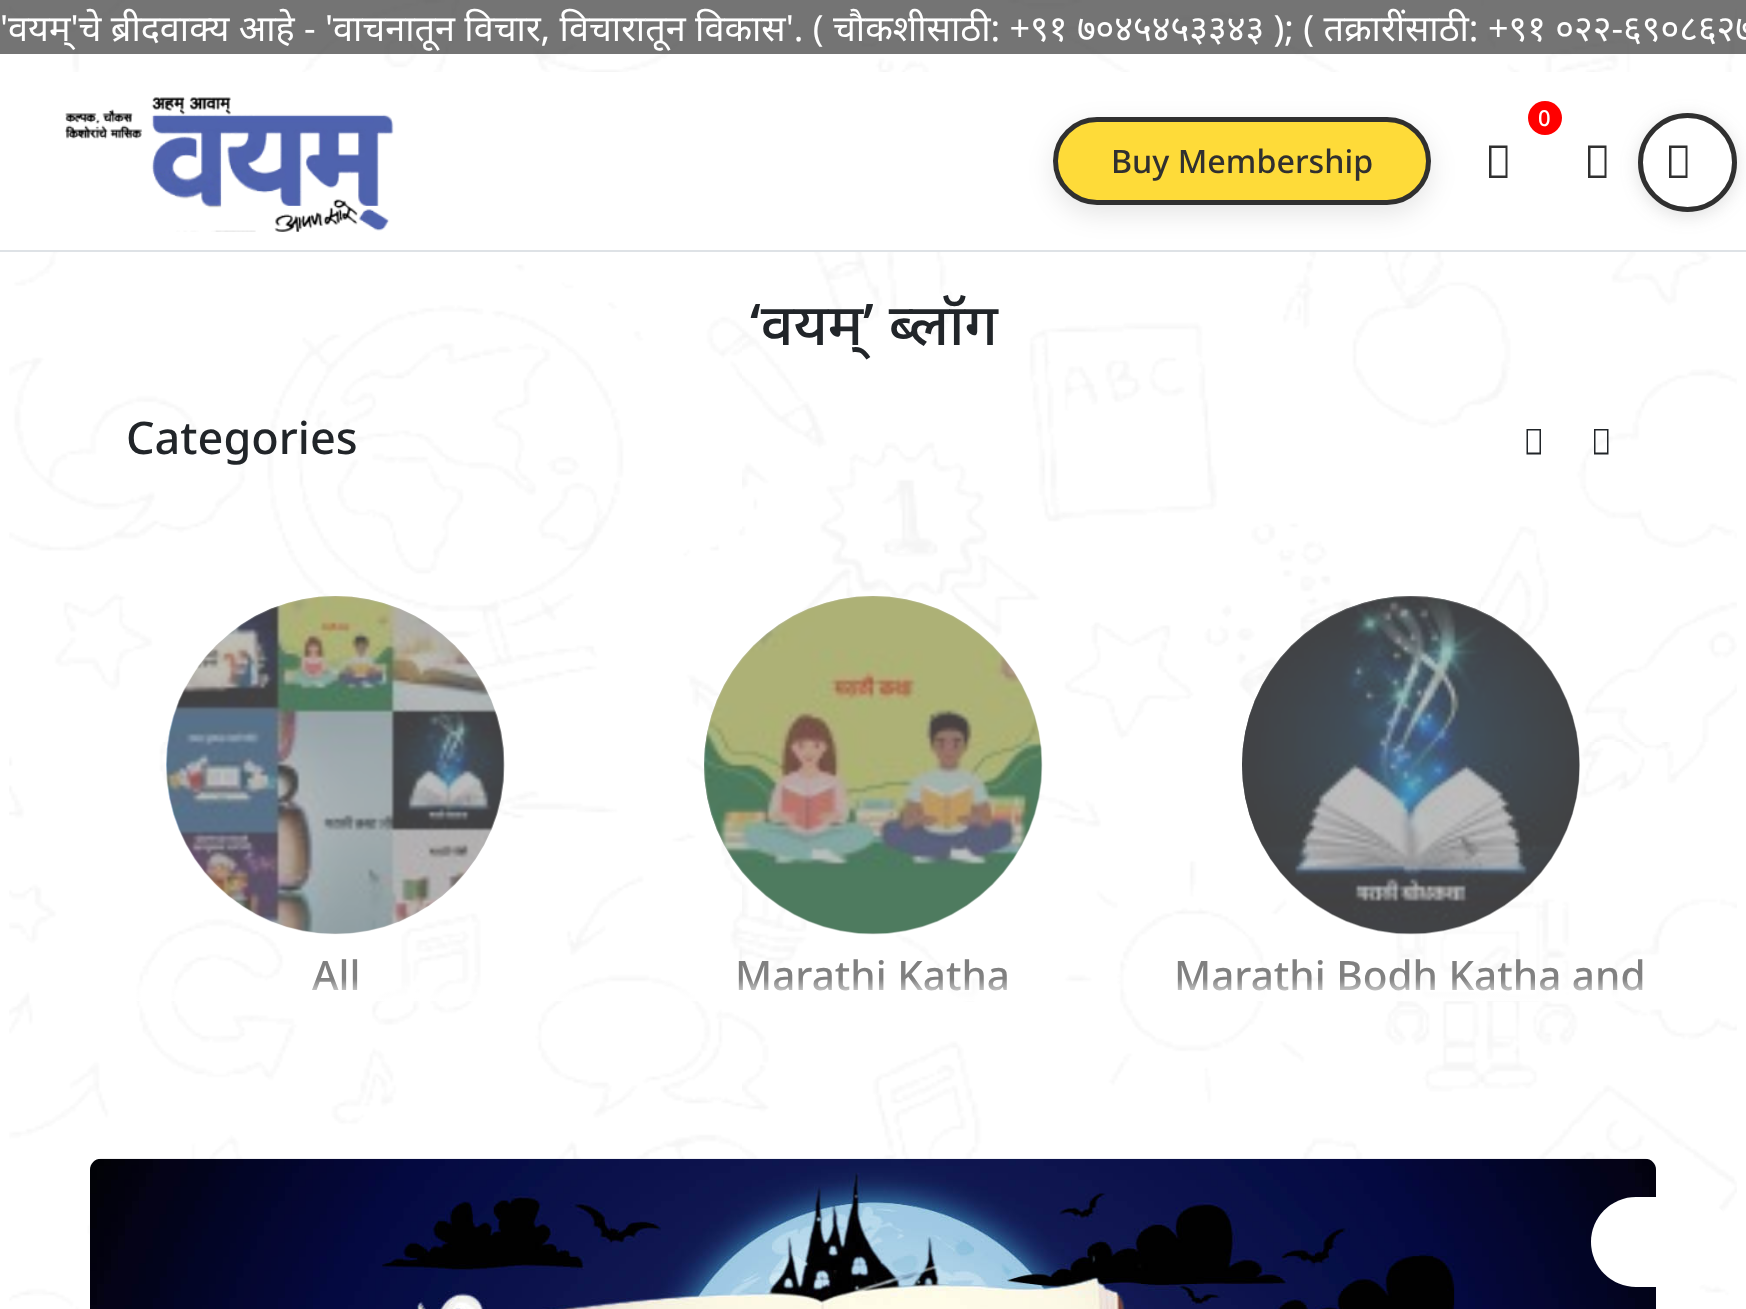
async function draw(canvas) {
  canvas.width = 1746
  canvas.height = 1309
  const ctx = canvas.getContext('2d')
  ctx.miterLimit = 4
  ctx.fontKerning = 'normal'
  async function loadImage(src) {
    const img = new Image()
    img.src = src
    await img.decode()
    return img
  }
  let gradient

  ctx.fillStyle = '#fff'
  ctx.fillRect(0, 0, 1746, 1309)
  ctx.drawImage(await loadImage('image0.png'), 9, 0, 1728, 1309)
  ctx.fillStyle = '#303030ab'
  ctx.fillRect(0, 0, 1746, 54)
  ctx.font = '36px Noto Sans'
  ctx.fillStyle = '#fff'
  ctx.fillText('\'वयम्\'चे ब्रीदवाक्य आहे - \'वाचनातून विचार, विचारातून विकास\'. ( चौकशीसाठी: +९१ ७०४५४५३३४३ ); ( तक्रारींसाठी: +९१ ०२२-६९०८६२७', 0, 41)
  ctx.fillRect(9, 72, 1728, 178)
  ctx.fillStyle = '#dee2e6'
  ctx.fillRect(0, 250, 1746, 2)
  ctx.drawImage(await loadImage('image1.png'), 65, 97, 329, 135)
  ctx.fillStyle = '#f00'
  ctx.beginPath()
  ctx.arc(1545, 118, 17, 0, 2 * Math.PI)
  ctx.fill()
  ctx.font = '500 22px Noto Sans'
  ctx.fillStyle = '#fff'
  ctx.fillText('0', 1538, 126)
  ctx.fillStyle = '#303030'
  ctx.beginPath()
  ctx.moveTo(1489, 178)
  ctx.lineTo(1489, 145.5)
  ctx.lineTo(1507.5, 145.5)
  ctx.lineTo(1507.5, 178)
  ctx.closePath()
  ctx.moveTo(1491.5, 175.5)
  ctx.lineTo(1505.5, 175.5)
  ctx.lineTo(1505.5, 148)
  ctx.lineTo(1491.5, 148)
  ctx.closePath()
  ctx.fill()
  ctx.save()
  ctx.beginPath()
  ctx.moveTo(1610, 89)
  ctx.lineTo(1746, 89)
  ctx.lineTo(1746, 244)
  ctx.lineTo(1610, 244)
  ctx.closePath()
  ctx.moveTo(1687.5, 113)
  ctx.bezierCurveTo(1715, 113, 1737, 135, 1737, 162.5)
  ctx.bezierCurveTo(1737, 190, 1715, 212, 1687.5, 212)
  ctx.bezierCurveTo(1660, 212, 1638, 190, 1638, 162.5)
  ctx.bezierCurveTo(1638, 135, 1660, 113, 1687.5, 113)
  ctx.closePath()
  ctx.clip('evenodd')
  ctx.fillStyle = '#63636333'
  ctx.filter = 'blur(9px)'
  ctx.beginPath()
  ctx.roundRect(1638, 117, 99, 99, 49.5)
  ctx.fill()
  ctx.filter = 'none'
  ctx.restore()
  ctx.beginPath()
  ctx.arc(1687.5, 162.5, 47, 0, 2 * Math.PI)
  ctx.strokeStyle = '#303030'
  ctx.lineWidth = 5
  ctx.stroke()
  ctx.beginPath()
  ctx.moveTo(1669, 178)
  ctx.lineTo(1669, 145.5)
  ctx.lineTo(1687.5, 145.5)
  ctx.lineTo(1687.5, 178)
  ctx.closePath()
  ctx.moveTo(1671.5, 175.5)
  ctx.lineTo(1685.5, 175.5)
  ctx.lineTo(1685.5, 148)
  ctx.lineTo(1671.5, 148)
  ctx.closePath()
  ctx.fill()
  ctx.fillStyle = '#0000001a'
  ctx.filter = 'blur(13.5px)'
  ctx.beginPath()
  ctx.roundRect(1053, 126, 378, 88, 44)
  ctx.fill()
  ctx.filter = 'none'
  ctx.fillStyle = '#fedb39'
  ctx.beginPath()
  ctx.roundRect(1055.5, 119.5, 373, 83, 41.5)
  ctx.fill()
  ctx.stroke()
  ctx.font = '500 32.25px Noto Sans'
  ctx.fillStyle = '#303030'
  ctx.fillText('Buy Membership', 1111, 173)
  ctx.beginPath()
  ctx.moveTo(1588, 178)
  ctx.lineTo(1588, 145.5)
  ctx.lineTo(1606.5, 145.5)
  ctx.lineTo(1606.5, 178)
  ctx.closePath()
  ctx.moveTo(1590.5, 175.5)
  ctx.lineTo(1604.5, 175.5)
  ctx.lineTo(1604.5, 148)
  ctx.lineTo(1590.5, 148)
  ctx.closePath()
  ctx.fill()
  ctx.font = '500 57.5px Noto Sans'
  ctx.fillStyle = '#212529'
  ctx.fillText('‘वयम्’ ब्लॉग', 750, 345)
  ctx.font = '500 45px Noto Sans'
  ctx.fillText('Categories', 126, 454)
  ctx.beginPath()
  ctx.moveTo(1526.5, 454.5)
  ctx.lineTo(1526.5, 429)
  ctx.lineTo(1541, 429)
  ctx.lineTo(1541, 454.5)
  ctx.closePath()
  ctx.moveTo(1528, 452.5)
  ctx.lineTo(1539.5, 452.5)
  ctx.lineTo(1539.5, 430.5)
  ctx.lineTo(1528, 430.5)
  ctx.closePath()
  ctx.fill()
  ctx.beginPath()
  ctx.moveTo(1594, 454.5)
  ctx.lineTo(1594, 429)
  ctx.lineTo(1608.5, 429)
  ctx.lineTo(1608.5, 454.5)
  ctx.closePath()
  ctx.moveTo(1595.5, 452.5)
  ctx.lineTo(1607, 452.5)
  ctx.lineTo(1607, 430.5)
  ctx.lineTo(1595.5, 430.5)
  ctx.closePath()
  ctx.fill()
  ctx.drawImage(await loadImage('image2.png'), 166, 596, 339, 339)
  ctx.fillStyle = '#80808082'
  ctx.beginPath()
  ctx.roundRect(167, 596, 337, 338, 168.5)
  ctx.fill()
  ctx.font = '500 40.5px Noto Sans'
  ctx.fillStyle = '#808080'
  ctx.fillText('All', 312, 990)
  gradient = ctx.createLinearGradient(336, 1001, 336, 979)
  gradient.addColorStop(0, '#fff')
  gradient.addColorStop(1, '#ffffff00')
  ctx.fillStyle = gradient
  ctx.beginPath()
  ctx.roundRect(90, 979, 493, 22, [0, 0, 18, 18])
  ctx.fill()
  ctx.drawImage(await loadImage('image3.png'), 704, 596, 339, 339)
  ctx.fillStyle = '#80808082'
  ctx.beginPath()
  ctx.arc(873, 765, 169, 0, 2 * Math.PI)
  ctx.fill()
  ctx.fillStyle = '#808080'
  ctx.fillText('Marathi Katha', 735, 990)
  gradient = ctx.createLinearGradient(873, 1001, 873, 979)
  gradient.addColorStop(0, '#fff')
  gradient.addColorStop(1, '#ffffff00')
  ctx.fillStyle = gradient
  ctx.beginPath()
  ctx.roundRect(628, 979, 490, 22, [0, 0, 18, 18])
  ctx.fill()
  ctx.drawImage(await loadImage('image4.png'), 1242, 596, 338, 339)
  ctx.fillStyle = '#80808082'
  ctx.beginPath()
  ctx.arc(1411, 765, 169, 0, 2 * Math.PI)
  ctx.fill()
  ctx.fillStyle = '#808080'
  ctx.fillText('Marathi Bodh Katha and', 1174, 990)
  gradient = ctx.createLinearGradient(1410, 1001, 1410, 979)
  gradient.addColorStop(0, '#fff')
  gradient.addColorStop(1, '#ffffff00')
  ctx.fillStyle = gradient
  ctx.beginPath()
  ctx.roundRect(1163, 979, 493, 22, [0, 0, 18, 18])
  ctx.fill()
  ctx.drawImage(await loadImage('image5.png'), 90, 1158, 1566, 151)
  ctx.fillStyle = '#fff'
  ctx.beginPath()
  ctx.roundRect(1591, 1197, 144, 90, 45)
  ctx.fill()
}

draw(document.querySelector('canvas'))
